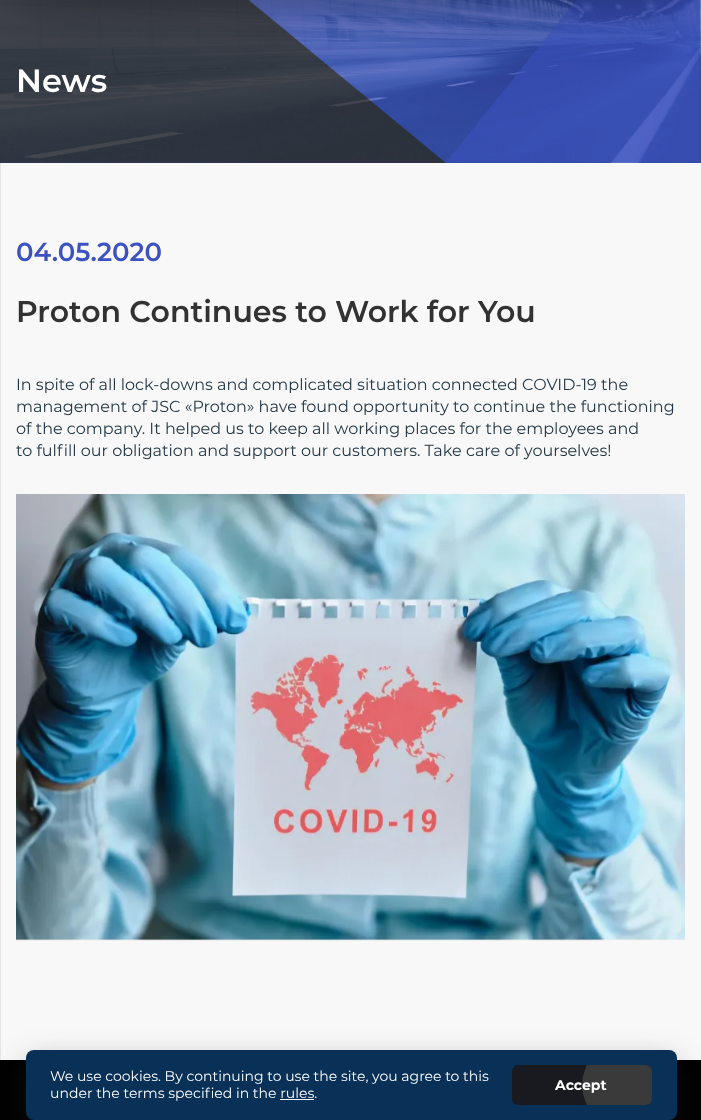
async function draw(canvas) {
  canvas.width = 701
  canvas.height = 1120
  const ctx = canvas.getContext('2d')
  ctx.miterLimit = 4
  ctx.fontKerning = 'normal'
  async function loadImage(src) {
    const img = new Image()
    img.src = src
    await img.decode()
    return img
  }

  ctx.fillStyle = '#fff'
  ctx.fillRect(0, 0, 701, 1120)
  ctx.drawImage(await loadImage('image0.png'), 0, 0, 701, 163)
  ctx.fillStyle = '#00000057'
  ctx.filter = 'blur(26.5px)'
  ctx.beginPath()
  ctx.roundRect(16, -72, 669, 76, 7)
  ctx.fill()
  ctx.filter = 'none'
  ctx.font = '600 32px Montserrat'
  ctx.fillStyle = '#fff'
  ctx.fillText('News', 16, 92)
  ctx.fillStyle = '#f8f8f8'
  ctx.fillRect(1, 163, 700, 897)
  ctx.fillStyle = '#e5e5e5'
  ctx.fillRect(0, 163, 1, 897)
  ctx.font = '600 26px Montserrat'
  ctx.fillStyle = '#3c52c1'
  ctx.fillText('04.05.2020', 16, 261)
  ctx.font = '600 30px Montserrat'
  ctx.fillStyle = '#323232'
  ctx.fillText('Proton Continues to Work for You', 16, 322)
  ctx.font = '16px Montserrat'
  ctx.fillStyle = '#233845'
  ctx.fillText('In spite of all lock-downs and complicated situation connected COVID-19 the', 16, 390)
  ctx.fillText('management of JSC «Proton» have found opportunity to continue the functioning', 16, 412)
  ctx.fillText('of the company. It helped us to keep all working places for the employees and', 16, 434)
  ctx.fillText('to fulfill our obligation and support our customers. Take care of yourselves!', 16, 456)
  ctx.drawImage(await loadImage('image1.png'), 16, 494, 669, 447)
  ctx.fillStyle = '#000'
  ctx.fillRect(0, 1060, 701, 60)
  ctx.fillStyle = '#2828284d'
  ctx.filter = 'blur(15px)'
  ctx.beginPath()
  ctx.roundRect(26, 1060, 651, 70, 8)
  ctx.fill()
  ctx.filter = 'none'
  ctx.fillStyle = '#093057'
  ctx.beginPath()
  ctx.roundRect(26, 1050, 651, 70, 8)
  ctx.fill()
  ctx.font = '14px Montserrat'
  ctx.fillStyle = '#fff'
  ctx.fillText('We use cookies. By continuing to use the site, you agree to this', 50, 1081)
  ctx.fillText('under the terms specified in the rules.', 50, 1098)
  ctx.fillRect(280, 1099, 34, 1)
  ctx.fillStyle = '#191a1f'
  ctx.beginPath()
  ctx.roundRect(512, 1065, 140, 40, 6)
  ctx.fill()
  ctx.save()
  ctx.beginPath()
  ctx.roundRect(512, 1065, 140, 40, 6)
  ctx.clip()
  ctx.fillStyle = '#3a3a3a'
  ctx.beginPath()
  ctx.arc(624, 1085, 42, 0, 2 * Math.PI)
  ctx.fill()
  ctx.restore()
  ctx.font = 'bold 14px Montserrat'
  ctx.fillStyle = '#fff'
  ctx.fillText('Accept', 555, 1090)
}

draw(document.querySelector('canvas'))
